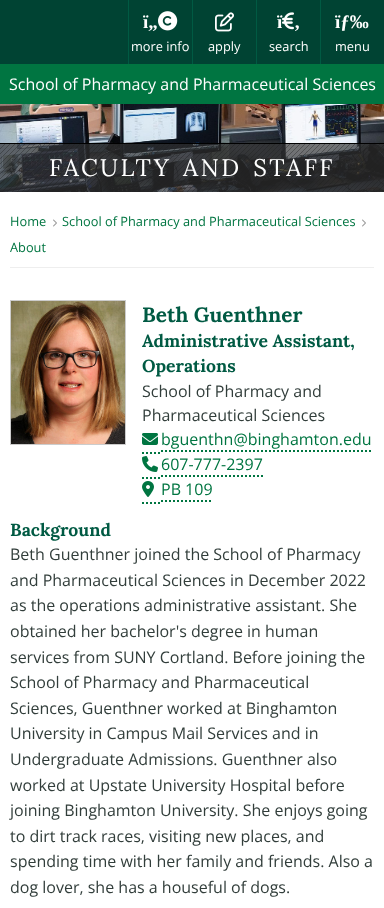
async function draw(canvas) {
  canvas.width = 384
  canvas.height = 908
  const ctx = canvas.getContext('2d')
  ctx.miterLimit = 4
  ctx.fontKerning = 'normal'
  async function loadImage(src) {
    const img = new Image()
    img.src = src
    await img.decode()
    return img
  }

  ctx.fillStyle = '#fff'
  ctx.fillRect(0, 0, 384, 908)
  ctx.fillStyle = '#004333'
  ctx.fillRect(0, 0, 384, 64)
  ctx.fillStyle = '#005a43'
  ctx.fillRect(128, 0, 1, 64)
  ctx.font = 'bold 19px Liberation Serif'
  ctx.fillStyle = '#fff'
  ctx.fillText('ï„', 143, 28)
  ctx.drawImage(await loadImage('image0.png'), 158, 11, 20, 20)
  ctx.font = '12.8px Open Sans'
  ctx.fillText('more info', 131, 51)
  ctx.fillStyle = '#005a43'
  ctx.fillRect(192, 0, 1, 64)
  ctx.drawImage(await loadImage('image1.png'), 215, 12, 19, 20)
  ctx.fillStyle = '#fff'
  ctx.fillText('apply', 208, 51)
  ctx.fillStyle = '#005a43'
  ctx.fillRect(256, 0, 1, 64)
  ctx.drawImage(await loadImage('image2.png'), 282, 12, 12, 18)
  ctx.font = 'bold 19px Liberation Serif'
  ctx.fillStyle = '#fff'
  ctx.fillText('ï', 277, 28)
  ctx.fillText('‚', 294, 28)
  ctx.font = '12.8px Open Sans'
  ctx.fillText('search', 269, 51)
  ctx.fillStyle = '#005a43'
  ctx.fillRect(320, 0, 1, 64)
  ctx.font = 'bold 19px Liberation Serif'
  ctx.fillStyle = '#fff'
  ctx.fillText('ïƒ‰', 335, 28)
  ctx.font = '12.8px Open Sans'
  ctx.fillText('menu', 335, 51)
  ctx.fillStyle = '#007541'
  ctx.fillRect(0, 64, 384, 40)
  ctx.font = '16px Open Sans'
  ctx.fillStyle = '#fff'
  ctx.fillText('School of Pharmacy and Pharmaceutical Sciences', 9, 90)
  ctx.drawImage(await loadImage('image3.png'), 0, 104, 384, 88)
  ctx.drawImage(await loadImage('image4.png'), 0, 144, 384, 48)
  ctx.fillStyle = '#000'
  ctx.fillRect(0, 143, 384, 1)
  ctx.letterSpacing = '2.4px'
  ctx.wordSpacing = '3px'
  ctx.font = '24px Lora'
  ctx.fillStyle = '#fff'
  ctx.fillText('FACULTY AND STAFF', 49, 176)
  ctx.fillStyle = '#eee'
  ctx.fillRect(10, 267, 364, 1)
  ctx.letterSpacing = '0px'
  ctx.wordSpacing = '0px'
  ctx.font = '12.8px Open Sans'
  ctx.fillStyle = '#007541'
  ctx.fillText('Home', 10, 226)
  ctx.drawImage(await loadImage('image5.png'), 53, 219, 4, 8)
  ctx.fillText('School of Pharmacy and Pharmaceutical Sciences', 62, 226)
  ctx.drawImage(await loadImage('image5.png'), 362, 219, 4, 8)
  ctx.fillText('About', 10, 252)
  ctx.strokeStyle = '#ccc'
  ctx.strokeRect(10.5, 300.5, 115, 144)
  ctx.drawImage(await loadImage('image6.png'), 11, 301, 114, 143)
  ctx.font = 'bold 20.75px Lora'
  ctx.fillStyle = '#005a43'
  ctx.fillText('Beth Guenthner', 142, 322)
  ctx.font = 'bold 17.6px Lora'
  ctx.fillText('Administrative Assistant,', 142, 347)
  ctx.fillText('Operations', 142, 372)
  ctx.font = '16px Open Sans'
  ctx.fillStyle = '#323e3b'
  ctx.fillText('School of Pharmacy and', 142, 397)
  ctx.fillText('Pharmaceutical Sciences', 142, 421)
  ctx.beginPath()
  ctx.moveTo(142, 453)
  ctx.lineTo(161, 453)
  ctx.strokeStyle = '#007541'
  ctx.lineWidth = 2
  ctx.setLineDash([2, 2])
  ctx.stroke()
  ctx.beginPath()
  ctx.moveTo(161, 451)
  ctx.lineTo(372, 451)
  ctx.stroke()
  ctx.drawImage(await loadImage('image7.png'), 142, 433, 16, 12)
  ctx.fillStyle = '#007541'
  ctx.fillText('bguenthn@binghamton.edu', 161, 445)
  ctx.beginPath()
  ctx.moveTo(142, 478)
  ctx.lineTo(161, 478)
  ctx.stroke()
  ctx.beginPath()
  ctx.moveTo(161, 476)
  ctx.lineTo(263, 476)
  ctx.stroke()
  ctx.drawImage(await loadImage('image8.png'), 142, 456, 16, 16)
  ctx.fillText('607-777-2397', 161, 470)
  ctx.beginPath()
  ctx.moveTo(142, 503)
  ctx.lineTo(161, 503)
  ctx.stroke()
  ctx.beginPath()
  ctx.moveTo(161, 501)
  ctx.lineTo(213, 501)
  ctx.stroke()
  ctx.drawImage(await loadImage('image9.png'), 142, 481, 12, 16)
  ctx.fillText('PB 109', 161, 495)
  ctx.font = 'bold 17.6px Lora'
  ctx.fillStyle = '#005a43'
  ctx.fillText('Background', 10, 536)
  ctx.font = '16px Open Sans'
  ctx.fillStyle = '#323e3b'
  ctx.fillText('Beth Guenthner joined the School of Pharmacy', 10, 560)
  ctx.fillText('and Pharmaceutical Sciences in December 2022', 10, 586)
  ctx.fillText('as the operations administrative assistant. She', 10, 611)
  ctx.fillText('obtained her bachelor\'s degree in human', 10, 637)
  ctx.fillText('services from SUNY Cortland. Before joining the', 10, 663)
  ctx.fillText('School of Pharmacy and Pharmaceutical', 10, 688)
  ctx.fillText('Sciences, Guenthner worked at Binghamton', 10, 714)
  ctx.fillText('University in Campus Mail Services and in', 10, 739)
  ctx.fillText('Undergraduate Admissions. Guenthner also', 10, 765)
  ctx.fillText('worked at Upstate University Hospital before', 10, 791)
  ctx.fillText('joining Binghamton University. She enjoys going', 10, 816)
  ctx.fillText('to dirt track races, visiting new places, and', 10, 842)
  ctx.fillText('spending time with her family and friends. Also a', 10, 867)
  ctx.fillText('dog lover, she has a houseful of dogs.', 10, 893)
}

draw(document.querySelector('canvas'))
